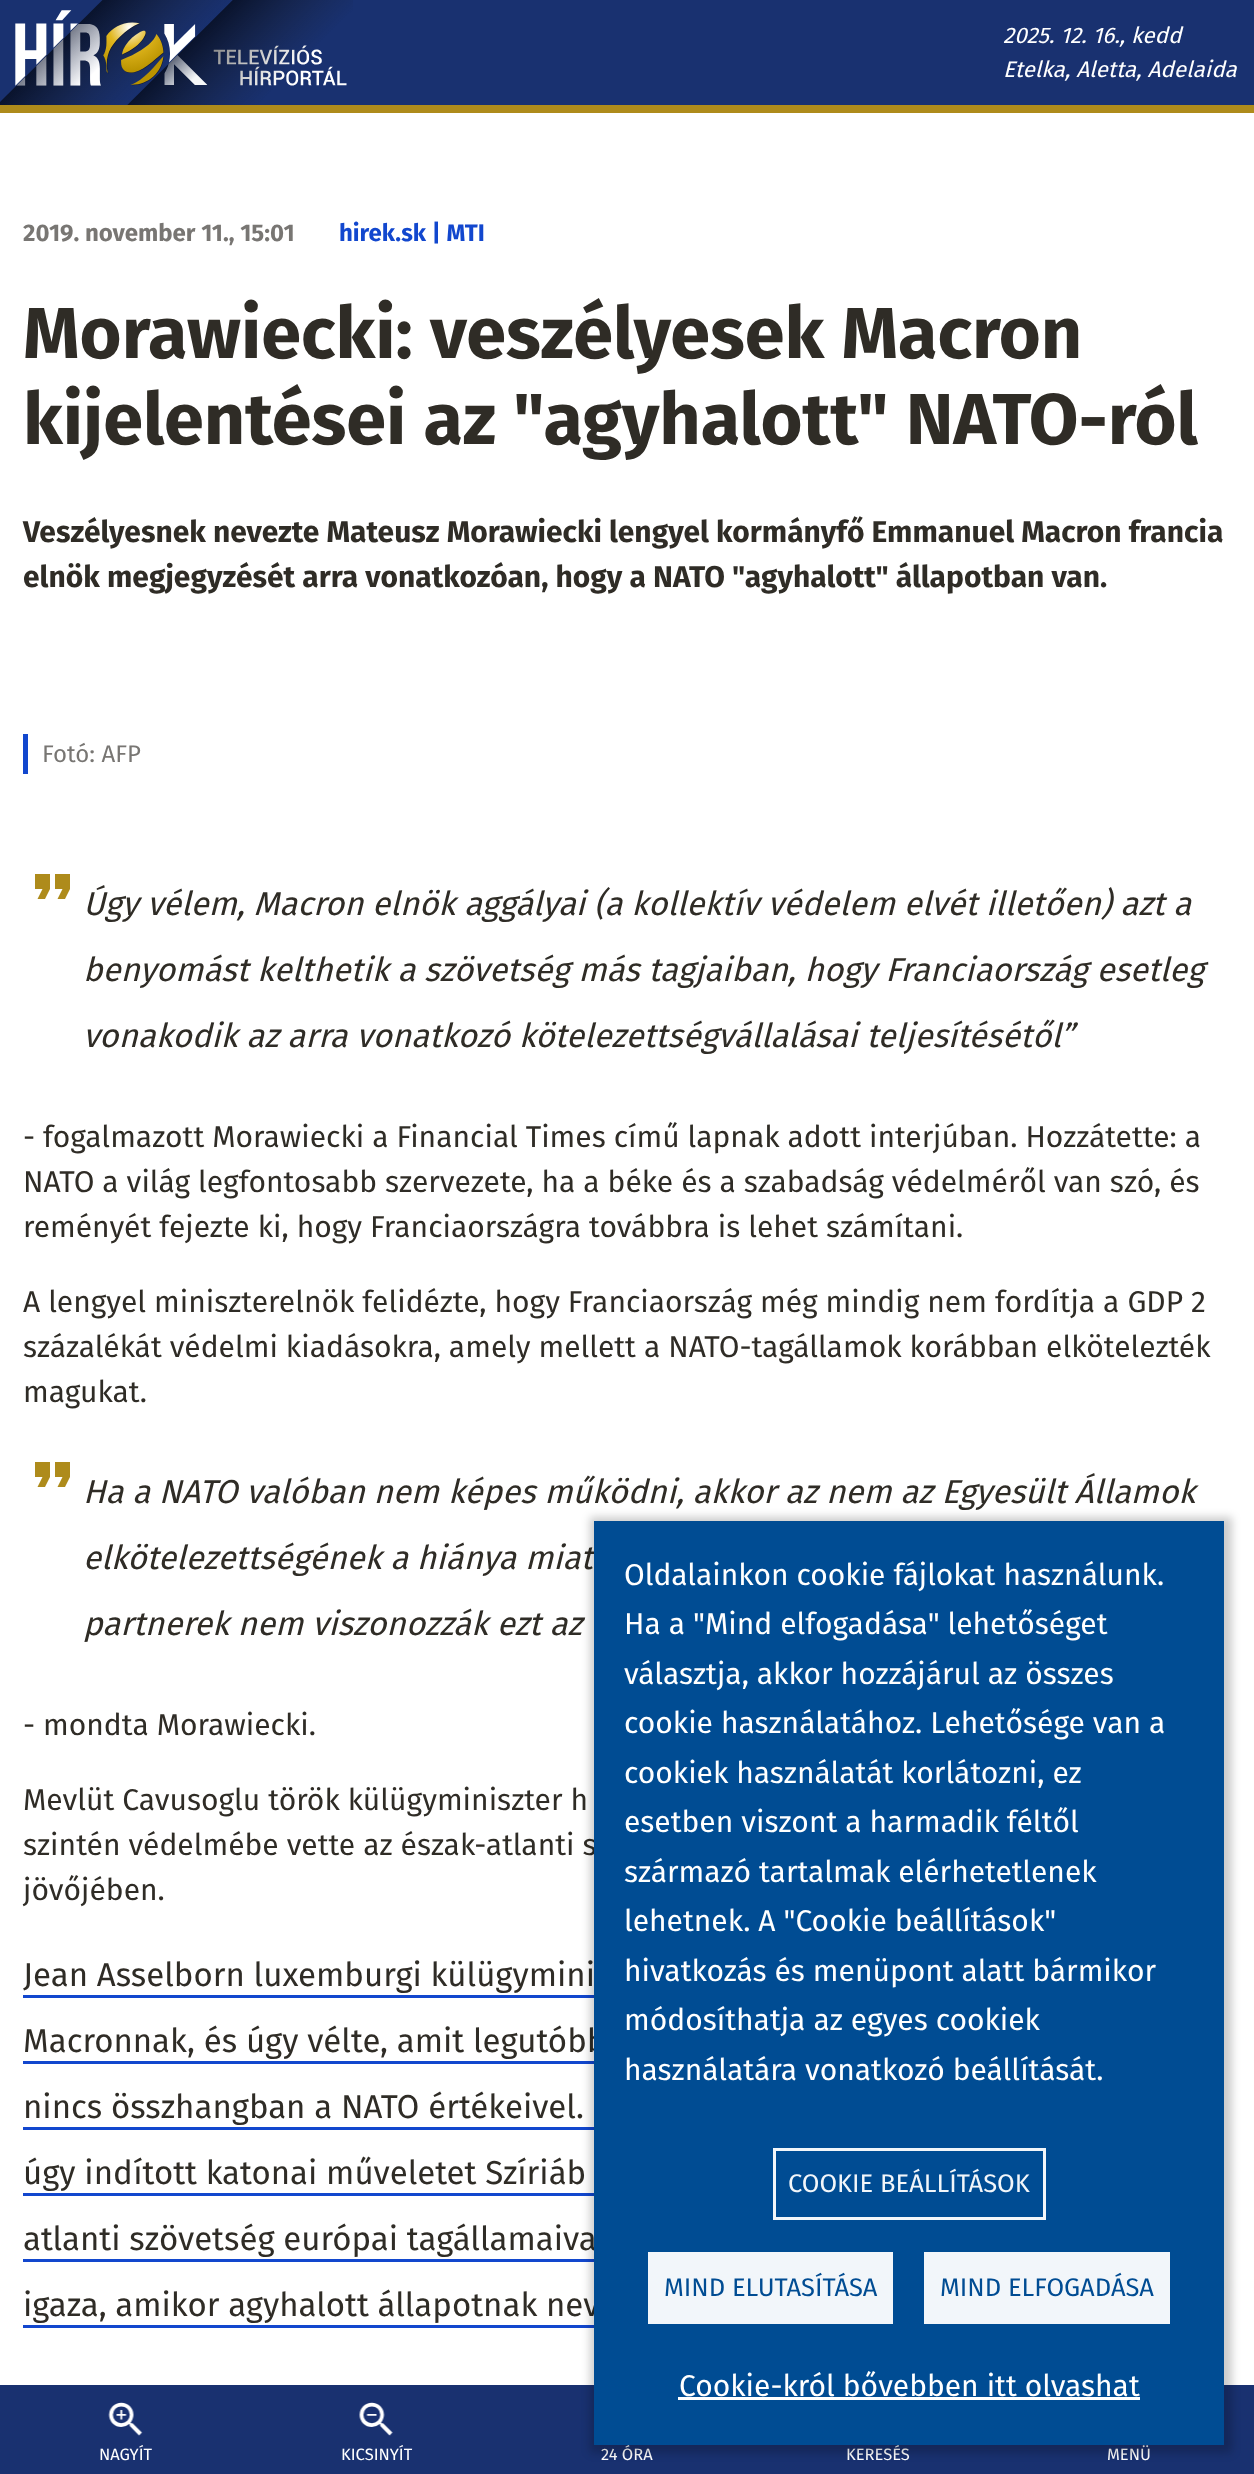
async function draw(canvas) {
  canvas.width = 1254
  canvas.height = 2474
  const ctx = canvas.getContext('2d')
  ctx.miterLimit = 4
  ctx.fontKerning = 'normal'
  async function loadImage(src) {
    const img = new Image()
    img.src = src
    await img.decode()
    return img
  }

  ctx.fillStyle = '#fff'
  ctx.fillRect(0, 0, 1254, 2474)
  ctx.fillStyle = '#193170'
  ctx.fillRect(0, 0, 1254, 105)
  ctx.drawImage(await loadImage('image0.png'), 0, 0, 353, 105)
  ctx.font = 'italic 22.5px Fira Sans'
  ctx.fillStyle = '#fff'
  ctx.fillText('2025. 12. 16., kedd', 1003, 43)
  ctx.fillText('Etelka, Aletta, Adelaida', 1003, 77)
  ctx.fillStyle = '#ae8b1b'
  ctx.fillRect(0, 105, 1254, 8)
  ctx.fillStyle = '#193170'
  ctx.fillRect(0, 2385, 1254, 89)
  ctx.drawImage(await loadImage('image1.png'), 108, 2402, 35, 34)
  ctx.font = '16.5px Fira Sans'
  ctx.fillStyle = '#fff'
  ctx.fillText('NAGYÍT', 99, 2460)
  ctx.drawImage(await loadImage('image2.png'), 359, 2402, 34, 34)
  ctx.fillText('KICSINYÍT', 341, 2460)
  ctx.fillText('24 ÓRA', 601, 2460)
  ctx.fillText('KERESÉS', 846, 2460)
  ctx.fillText('MENÜ', 1107, 2460)
  ctx.font = 'bold 24px Fira Sans'
  ctx.fillStyle = '#787673'
  ctx.fillText('2019. november 11., 15:01', 23, 241)
  ctx.fillStyle = '#1247ce'
  ctx.fillText('hirek.sk | MTI', 339, 241)
  ctx.font = 'bold 72px Fira Sans'
  ctx.fillStyle = '#2f2c26'
  ctx.fillText('Morawiecki: veszélyesek Macron', 23, 358)
  ctx.fillText('kijelentései az "agyhalott" NATO-ról', 23, 444)
  ctx.font = 'bold 30px Fira Sans'
  ctx.fillText('Veszélyesnek nevezte Mateusz Morawiecki lengyel kormányfő Emmanuel Macron francia', 23, 542)
  ctx.fillText('elnök megjegyzését arra vonatkozóan, hogy a NATO "agyhalott" állapotban van.', 23, 587)
  ctx.fillStyle = '#1247ce'
  ctx.fillRect(23, 734, 5, 40)
  ctx.font = '24px Fira Sans'
  ctx.fillStyle = '#787673'
  ctx.fillText('Fotó: AFP', 42, 762)
  ctx.drawImage(await loadImage('image3.png'), 35, 874, 35, 25)
  ctx.font = 'italic 33px Fira Sans'
  ctx.fillStyle = '#2f2c26'
  ctx.fillText('Úgy vélem, Macron elnök aggályai (a kollektív védelem elvét illetően) azt a', 83, 915)
  ctx.fillText('benyomást kelthetik a szövetség más tagjaiban, hogy Franciaország esetleg', 83, 981)
  ctx.fillText('vonakodik az arra vonatkozó kötelezettségvállalásai teljesítésétől”', 83, 1047)
  ctx.font = '30px Fira Sans'
  ctx.fillText('- fogalmazott Morawiecki a Financial Times című lapnak adott interjúban. Hozzátette: a', 23, 1147)
  ctx.fillText('NATO a világ legfontosabb szervezete, ha a béke és a szabadság védelméről van szó, és', 23, 1192)
  ctx.fillText('reményét fejezte ki, hogy Franciaországra továbbra is lehet számítani.', 23, 1237)
  ctx.fillText('A lengyel miniszterelnök felidézte, hogy Franciaország még mindig nem fordítja a GDP 2', 23, 1312)
  ctx.fillText('százalékát védelmi kiadásokra, amely mellett a NATO-tagállamok korábban elkötelezték', 23, 1357)
  ctx.fillText('magukat.', 23, 1402)
  ctx.drawImage(await loadImage('image3.png'), 35, 1462, 35, 25)
  ctx.font = 'italic 33px Fira Sans'
  ctx.fillText('Ha a NATO valóban nem képes működni, akkor az nem az Egyesült Államok', 83, 1503)
  ctx.fillText('elkötelezettségének a hiánya miat', 83, 1569)
  ctx.fillText('partnerek nem viszonozzák ezt az', 83, 1635)
  ctx.font = '30px Fira Sans'
  ctx.fillText('- mondta Morawiecki.', 23, 1735)
  ctx.fillText('Mevlüt Cavusoglu török külügyminiszter h', 23, 1810)
  ctx.fillText('szintén védelmébe vette az észak-atlanti s', 23, 1855)
  ctx.fillText('jövőjében.', 23, 1900)
  ctx.font = '33px Fira Sans'
  ctx.fillText('Jean Asselborn luxemburgi külügymini', 23, 1986)
  ctx.fillStyle = '#1247ce'
  ctx.fillRect(23, 1995, 571, 3)
  ctx.fillStyle = '#2f2c26'
  ctx.fillText('Macronnak, és úgy vélte, amit legutóbb', 23, 2052)
  ctx.fillStyle = '#1247ce'
  ctx.fillRect(23, 2061, 571, 3)
  ctx.fillStyle = '#2f2c26'
  ctx.fillText('nincs összhangban a NATO értékeivel.', 23, 2118)
  ctx.fillStyle = '#1247ce'
  ctx.fillRect(23, 2127, 571, 3)
  ctx.fillStyle = '#2f2c26'
  ctx.fillText('úgy indított katonai műveletet Szíriáb', 23, 2184)
  ctx.fillStyle = '#1247ce'
  ctx.fillRect(23, 2193, 571, 3)
  ctx.fillStyle = '#2f2c26'
  ctx.fillText('atlanti szövetség európai tagállamaiva', 23, 2250)
  ctx.fillStyle = '#1247ce'
  ctx.fillRect(23, 2259, 571, 3)
  ctx.fillStyle = '#2f2c26'
  ctx.fillText('igaza, amikor agyhalott állapotnak nev', 23, 2316)
  ctx.fillStyle = '#1247ce'
  ctx.fillRect(23, 2325, 571, 3)
  ctx.fillStyle = '#00000033'
  ctx.filter = 'blur(4.5px)'
  ctx.beginPath()
  ctx.rect(590, 1517, 642, 936)
  ctx.fill()
  ctx.filter = 'none'
  ctx.fillStyle = '#004c93'
  ctx.fillRect(594, 1521, 630, 924)
  ctx.font = '30px Fira Sans'
  ctx.fillStyle = '#fff'
  ctx.fillText('Oldalainkon cookie fájlokat használunk.', 624, 1585)
  ctx.fillText('Ha a "Mind elfogadása" lehetőséget', 624, 1634)
  ctx.fillText('választja, akkor hozzájárul az összes', 624, 1684)
  ctx.fillText('cookie használatához. Lehetősége van a', 624, 1733)
  ctx.fillText('cookiek használatát korlátozni, ez', 624, 1783)
  ctx.fillText('esetben viszont a harmadik féltől', 624, 1832)
  ctx.fillText('származó tartalmak elérhetetlenek', 624, 1882)
  ctx.fillText('lehetnek. A "Cookie beállítások"', 624, 1931)
  ctx.fillText('hivatkozás és menüpont alatt bármikor', 624, 1981)
  ctx.fillText('módosíthatja az egyes cookiek', 624, 2030)
  ctx.fillText('használatára vonatkozó beállítását.', 624, 2080)
  ctx.strokeStyle = '#f2f6fa'
  ctx.lineWidth = 3
  ctx.strokeRect(774.5, 2149.5, 270, 69)
  ctx.font = '25.5px Fira Sans'
  ctx.fillStyle = '#f2f6fa'
  ctx.fillText('COOKIE BEÁLLÍTÁSOK', 788, 2192)
  ctx.fillRect(648, 2252, 245, 72)
  ctx.fillStyle = '#004c93'
  ctx.fillText('MIND ELUTASÍTÁSA', 664, 2296)
  ctx.fillStyle = '#f2f6fa'
  ctx.fillRect(924, 2252, 246, 72)
  ctx.fillStyle = '#004c93'
  ctx.fillText('MIND ELFOGADÁSA', 940, 2296)
  ctx.font = '30px Fira Sans'
  ctx.fillStyle = '#fff'
  ctx.fillText('Cookie-król bővebben itt olvashat', 679, 2396)
  ctx.fillRect(678, 2397, 462, 3)
}

draw(document.querySelector('canvas'))
